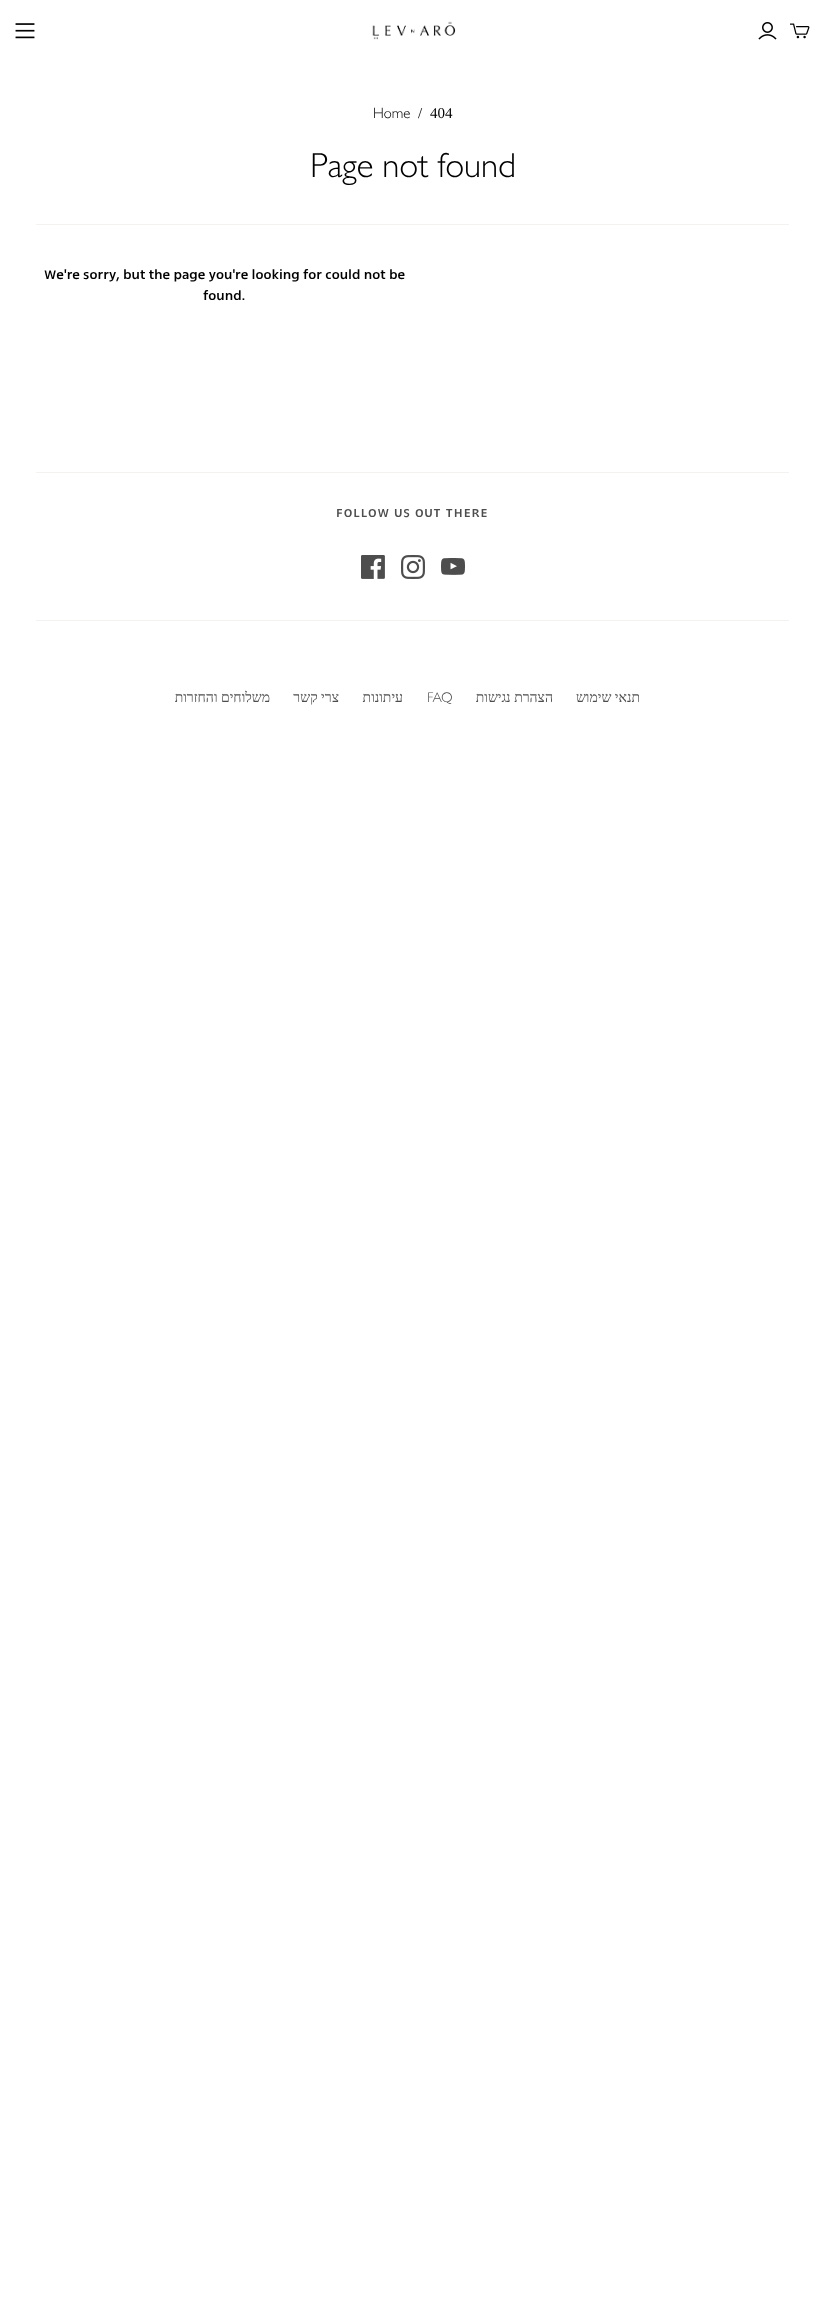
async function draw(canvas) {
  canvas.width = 825
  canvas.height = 2320
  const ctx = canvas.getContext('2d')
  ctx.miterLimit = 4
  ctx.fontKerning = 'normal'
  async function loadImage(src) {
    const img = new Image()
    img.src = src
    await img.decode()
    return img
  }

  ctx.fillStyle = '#fff'
  ctx.fillRect(0, 0, 825, 2320)
  ctx.drawImage(await loadImage('image0.png'), 372, 21, 84, 19)
  ctx.drawImage(await loadImage('image1.png'), 15, 23, 20, 16)
  ctx.drawImage(await loadImage('image2.png'), 758, 22, 19, 18)
  ctx.drawImage(await loadImage('image3.png'), 790, 23, 20, 16)
  ctx.font = '300 15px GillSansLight'
  ctx.fillStyle = '#000'
  ctx.fillText('Home', 373, 118)
  ctx.font = '15px Liberation Serif'
  ctx.fillText('/', 418, 118)
  ctx.fillText('404', 430, 118)
  ctx.fillStyle = '#f4f2f1'
  ctx.fillRect(36, 224, 753, 1)
  ctx.font = '300 35px GillSansLight'
  ctx.fillStyle = '#000'
  ctx.fillText('Page not found', 310, 177)
  ctx.font = '500 15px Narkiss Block'
  ctx.fillText('We\'re sorry, but the page you\'re looking for could not be', 44, 279)
  ctx.fillText('found.', 203, 300)
  ctx.fillStyle = '#f4f2f1'
  ctx.fillRect(36, 472, 753, 1)
  ctx.fillRect(36, 620, 753, 1)
  ctx.letterSpacing = '1.1px'
  ctx.font = '500 14px Narkiss Block'
  ctx.fillStyle = '#4d4d4d'
  ctx.fillText('FOLLOW US OUT THERE', 336, 517)
  ctx.drawImage(await loadImage('image4.png'), 361, 555, 24, 24)
  ctx.drawImage(await loadImage('image5.png'), 401, 555, 24, 24)
  ctx.drawImage(await loadImage('image6.png'), 441, 558, 24, 17)
  ctx.letterSpacing = '0px'
  ctx.direction = 'rtl'
  ctx.font = '14px Liberation Serif'
  ctx.fillText('משלוחים והחזרות', 270, 702)
  ctx.fillText('צרי קשר', 339, 702)
  ctx.fillText('עיתונות', 403, 702)
  ctx.direction = 'ltr'
  ctx.font = '300 14px GillSansLight'
  ctx.fillText('FAQ', 427, 702)
  ctx.direction = 'rtl'
  ctx.font = '14px Liberation Serif'
  ctx.fillText('הצהרת נגישות', 553, 702)
  ctx.fillText('תנאי שימוש', 640, 702)
}

draw(document.querySelector('canvas'))
